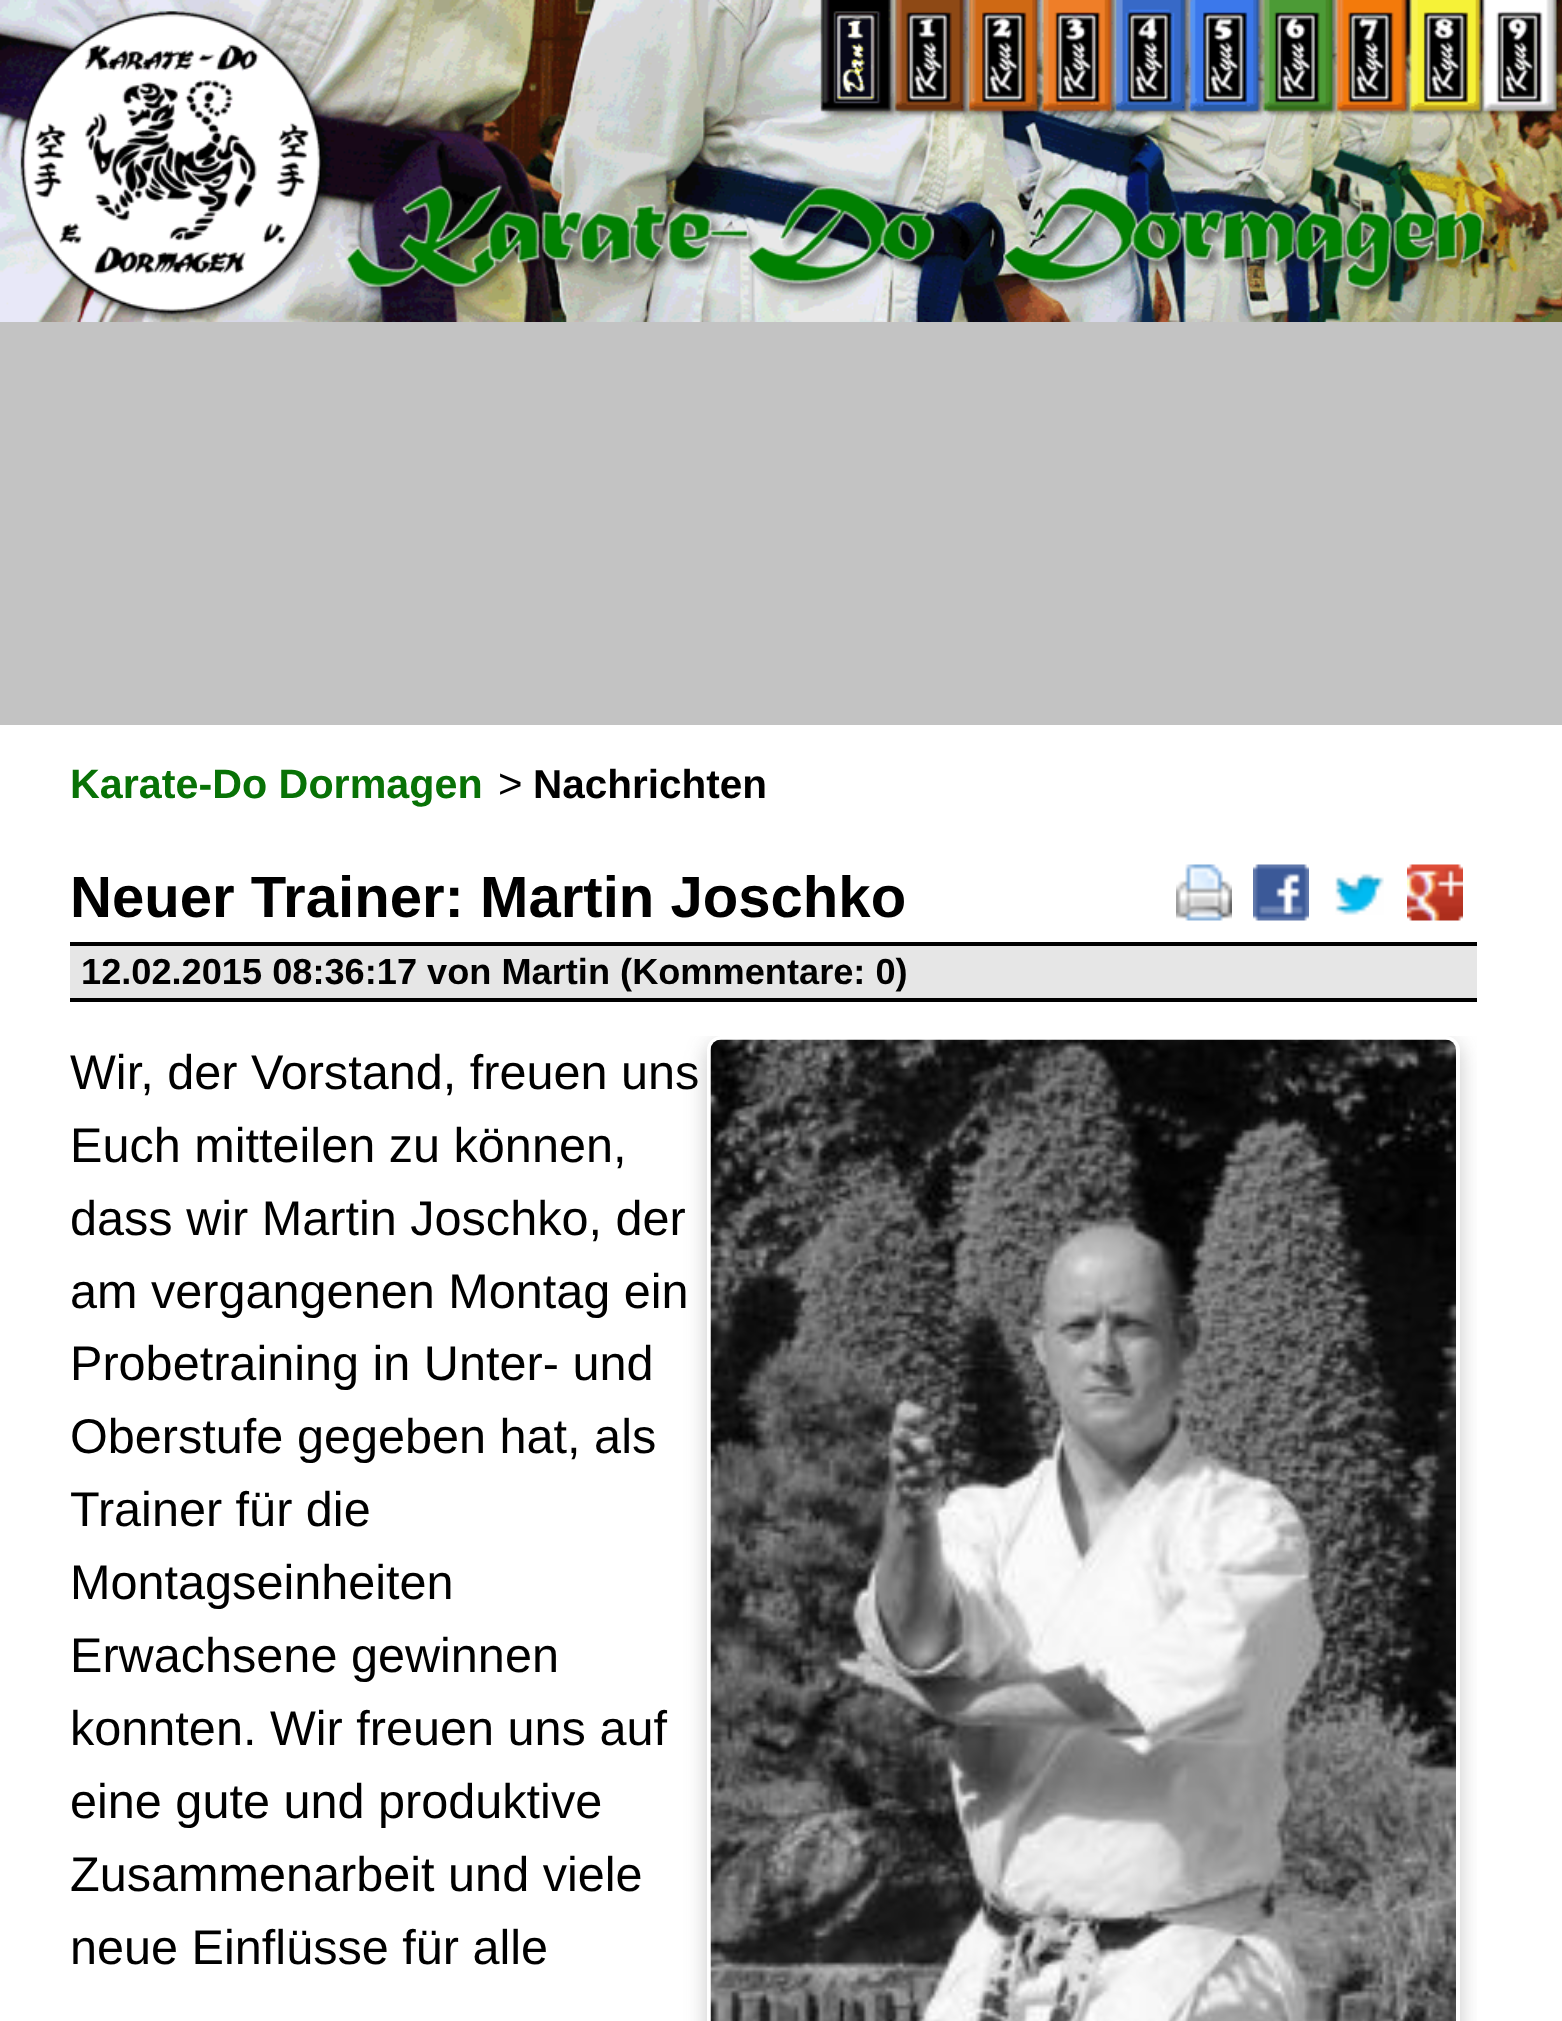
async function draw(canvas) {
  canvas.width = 1562
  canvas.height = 2021
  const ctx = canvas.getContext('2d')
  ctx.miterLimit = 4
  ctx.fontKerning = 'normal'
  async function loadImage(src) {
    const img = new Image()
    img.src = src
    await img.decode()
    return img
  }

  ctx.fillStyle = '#c3c3c3'
  ctx.fillRect(0, 0, 1562, 2021)
  ctx.drawImage(await loadImage('image0.png'), 0, 0, 1562, 322)
  ctx.fillStyle = '#fff'
  ctx.fillRect(0, 725, 1562, 1296)
  ctx.font = 'bold 41.25px Liberation Sans'
  ctx.fillStyle = '#087206'
  ctx.fillText('Karate-Do Dormagen', 70, 798)
  ctx.font = '42px Liberation Sans'
  ctx.fillStyle = '#000'
  ctx.fillText('>', 498, 798)
  ctx.font = 'bold 40.5px Liberation Sans'
  ctx.fillText('Nachrichten', 533, 798)
  ctx.font = 'bold 58.1px Liberation Sans'
  ctx.fillText('Neuer Trainer: Martin Joschko', 70, 917)
  ctx.fillStyle = '#e6e6e6'
  ctx.fillRect(70, 946, 1407, 52)
  ctx.fillStyle = '#000'
  ctx.fillRect(70, 942, 1407, 4)
  ctx.fillRect(70, 998, 1407, 4)
  ctx.font = 'bold 36.2px Liberation Sans'
  ctx.fillText('12.02.2015 08:36:17 von Martin (Kommentare: 0)', 81, 984)
  ctx.font = '48.6px Liberation Sans'
  ctx.fillText('Wir, der Vorstand, freuen uns', 70, 1089)
  ctx.fillText('Euch mitteilen zu können,', 70, 1162)
  ctx.fillText('dass wir Martin Joschko, der', 70, 1235)
  ctx.fillText('am vergangenen Montag ein', 70, 1308)
  ctx.fillText('Probetraining in Unter- und', 70, 1380)
  ctx.fillText('Oberstufe gegeben hat, als', 70, 1453)
  ctx.fillText('Trainer für die', 70, 1526)
  ctx.fillText('Montagseinheiten', 70, 1599)
  ctx.fillText('Erwachsene gewinnen', 70, 1672)
  ctx.fillText('konnten. Wir freuen uns auf', 70, 1745)
  ctx.fillText('eine gute und produktive', 70, 1818)
  ctx.fillText('Zusammenarbeit und viele', 70, 1891)
  ctx.fillText('neue Einflüsse für alle', 70, 1964)
  ctx.save()
  ctx.beginPath()
  ctx.rect(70, 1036, 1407, 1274)
  ctx.clip()
  ctx.beginPath()
  ctx.moveTo(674, 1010)
  ctx.lineTo(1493, 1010)
  ctx.lineTo(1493, 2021)
  ctx.lineTo(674, 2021)
  ctx.closePath()
  ctx.moveTo(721, 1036)
  ctx.lineTo(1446, 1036)
  ctx.bezierCurveTo(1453.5, 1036, 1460, 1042.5, 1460, 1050)
  ctx.lineTo(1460, 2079)
  ctx.bezierCurveTo(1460, 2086.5, 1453.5, 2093, 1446, 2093)
  ctx.lineTo(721, 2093)
  ctx.bezierCurveTo(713.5, 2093, 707, 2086.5, 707, 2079)
  ctx.lineTo(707, 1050)
  ctx.bezierCurveTo(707, 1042.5, 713.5, 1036, 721, 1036)
  ctx.closePath()
  ctx.clip('evenodd')
  ctx.fillStyle = '#4444444d'
  ctx.filter = 'blur(10.5px)'
  ctx.beginPath()
  ctx.roundRect(707, 1043, 753, 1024, 14)
  ctx.fill()
  ctx.filter = 'none'
  ctx.restore()
  ctx.drawImage(await loadImage('image1.png'), 710, 1039, 746, 982)
  ctx.drawImage(await loadImage('image2.png'), 1176, 864, 56, 57)
  ctx.drawImage(await loadImage('image3.png'), 1253, 864, 56, 57)
  ctx.drawImage(await loadImage('image4.png'), 1335, 873, 49, 42)
  ctx.drawImage(await loadImage('image5.png'), 1407, 864, 56, 57)
}

draw(document.querySelector('canvas'))
